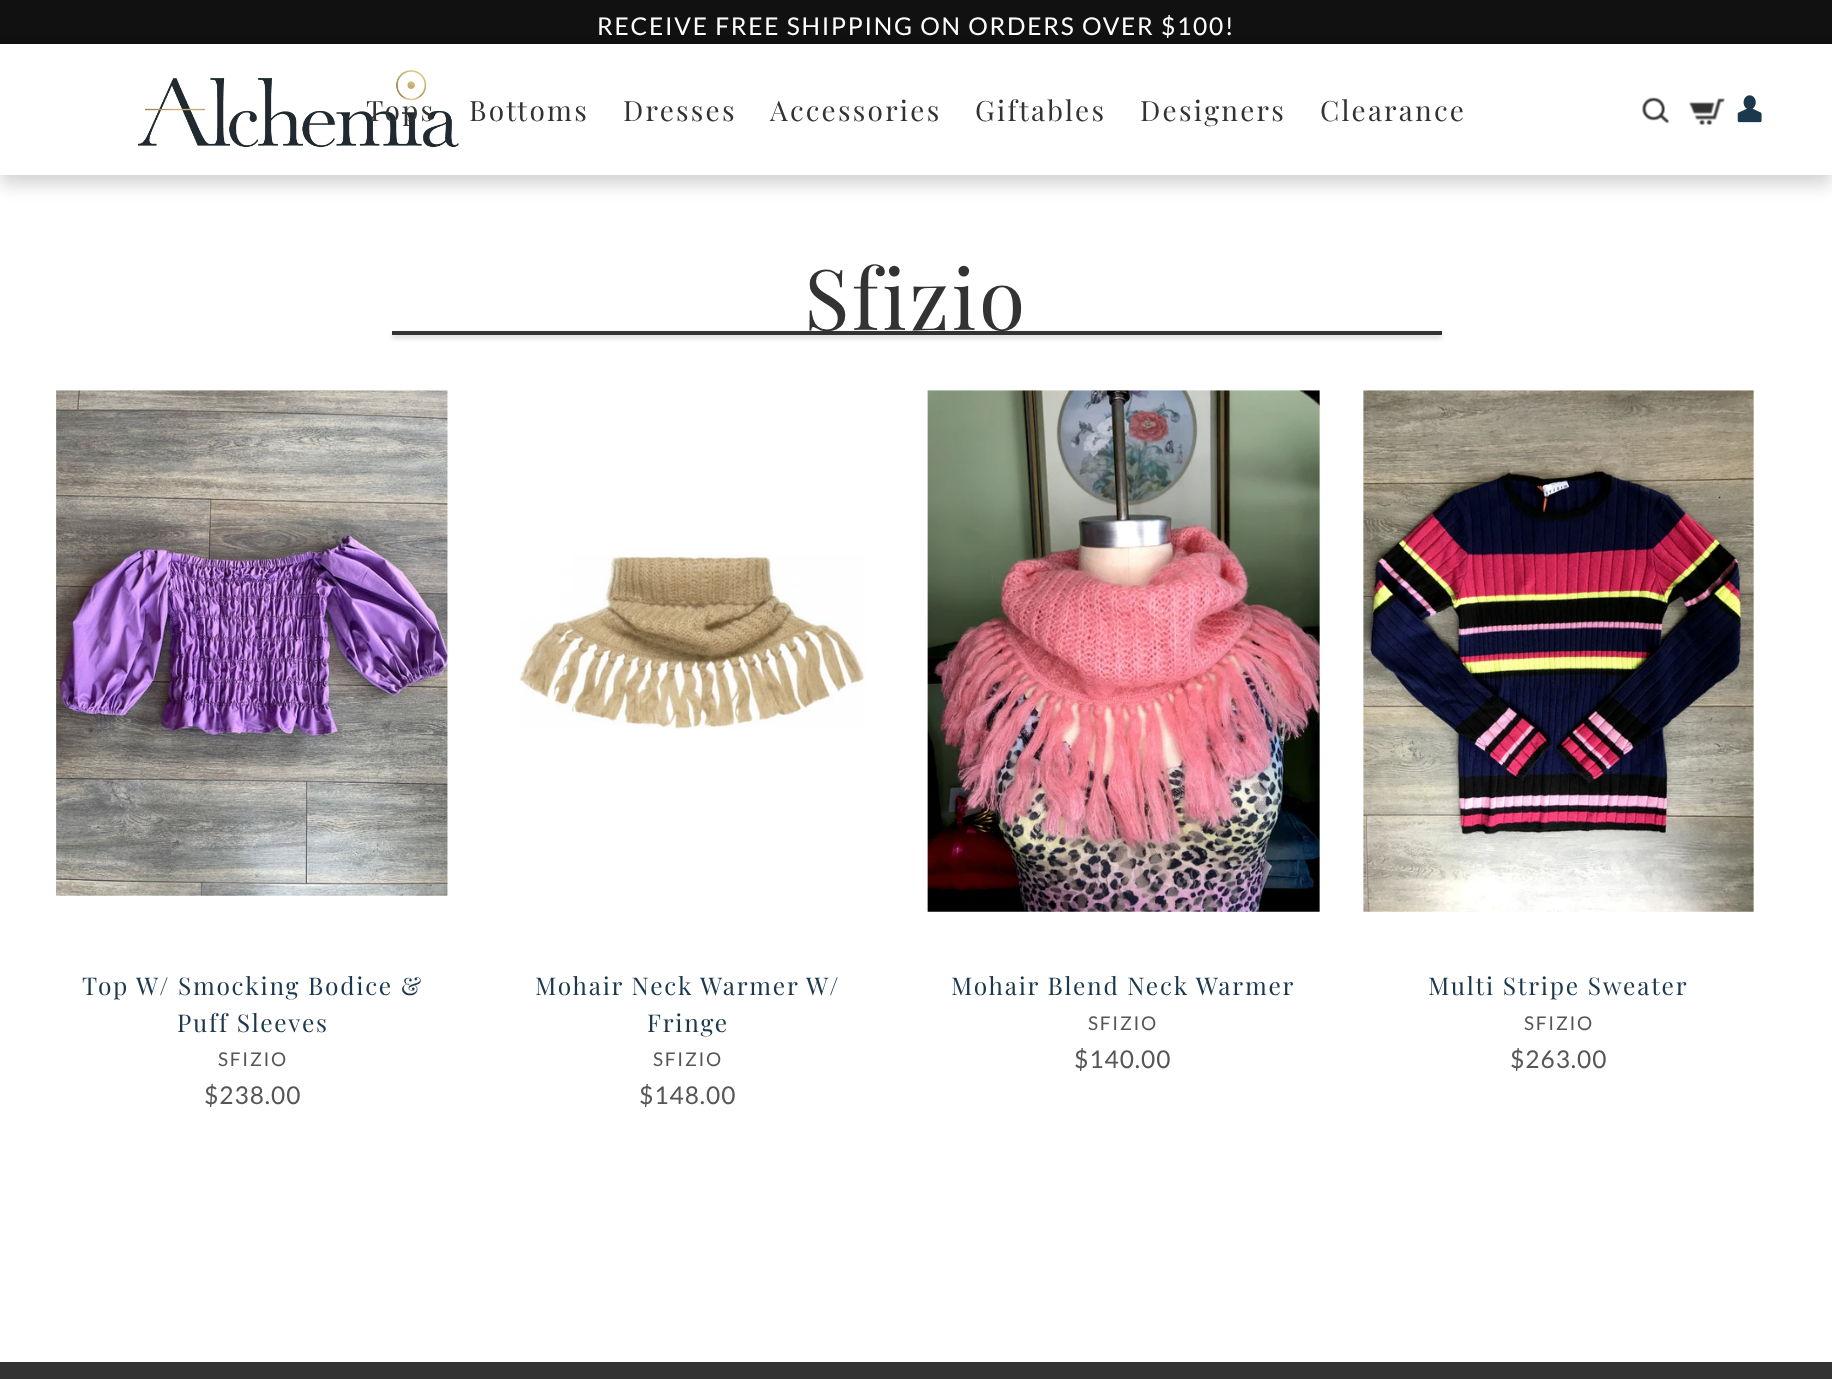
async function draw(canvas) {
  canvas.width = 1832
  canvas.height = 1379
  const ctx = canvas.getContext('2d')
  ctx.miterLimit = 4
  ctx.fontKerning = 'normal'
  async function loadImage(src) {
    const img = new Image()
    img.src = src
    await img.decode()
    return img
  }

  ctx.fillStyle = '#fff'
  ctx.fillRect(0, 0, 1832, 1379)
  ctx.fillStyle = '#111'
  ctx.fillRect(0, 0, 1832, 44)
  ctx.letterSpacing = '1.75px'
  ctx.font = '24.5px Lato'
  ctx.fillStyle = '#fff'
  ctx.fillText('RECEIVE FREE SHIPPING ON ORDERS OVER $100!', 597, 35)
  ctx.fillStyle = '#0000002e'
  ctx.filter = 'blur(9px)'
  ctx.beginPath()
  ctx.rect(0, 53, 1832, 131)
  ctx.fill()
  ctx.filter = 'none'
  ctx.fillStyle = '#fff'
  ctx.fillRect(0, 44, 1832, 131)
  ctx.drawImage(await loadImage('image0.png'), 137, 70, 322, 78)
  ctx.letterSpacing = '2.25px'
  ctx.font = '28px Playfair Display'
  ctx.fillStyle = '#333'
  ctx.fillText('Tops', 366, 121)
  ctx.fillText('Bottoms', 469, 121)
  ctx.fillText('Dresses', 623, 121)
  ctx.fillText('Accessories', 770, 121)
  ctx.fillText('Giftables', 975, 121)
  ctx.fillText('Designers', 1140, 121)
  ctx.fillText('Clearance', 1320, 121)
  ctx.drawImage(await loadImage('image1.png'), 1641, 97, 29, 27)
  ctx.drawImage(await loadImage('image2.png'), 1689, 98, 36, 27)
  ctx.drawImage(await loadImage('image3.png'), 1737, 95, 25, 28)
  ctx.letterSpacing = '2.5px'
  ctx.font = '84px Playfair Display'
  ctx.fillText('Sfizio', 804, 330)
  ctx.fillStyle = '#0000002e'
  ctx.filter = 'blur(2.5px)'
  ctx.beginPath()
  ctx.rect(392, 334, 1050, 4)
  ctx.fill()
  ctx.filter = 'none'
  ctx.fillStyle = '#333'
  ctx.fillRect(392, 331, 1050, 4)
  ctx.drawImage(await loadImage('image4.png'), 56, 390, 393, 506)
  ctx.letterSpacing = '1.75px'
  ctx.font = '24.5px Playfair Display'
  ctx.fillStyle = '#1c384d'
  ctx.fillText('Top W/ Smocking Bodice &', 82, 995)
  ctx.fillText('Puff Sleeves', 177, 1032)
  ctx.font = '19px Lato'
  ctx.fillStyle = '#565656'
  ctx.fillText('SFIZIO', 218, 1066)
  ctx.letterSpacing = '1px'
  ctx.font = '24.5px Lato'
  ctx.fillText('$238.00', 204, 1104)
  ctx.drawImage(await loadImage('image5.png'), 519, 554, 346, 175)
  ctx.letterSpacing = '1.75px'
  ctx.font = '24.5px Playfair Display'
  ctx.fillStyle = '#1c384d'
  ctx.fillText('Mohair Neck Warmer W/', 535, 995)
  ctx.fillText('Fringe', 647, 1032)
  ctx.font = '19px Lato'
  ctx.fillStyle = '#565656'
  ctx.fillText('SFIZIO', 653, 1066)
  ctx.letterSpacing = '1px'
  ctx.font = '24.5px Lato'
  ctx.fillText('$148.00', 639, 1104)
  ctx.drawImage(await loadImage('image6.png'), 927, 390, 393, 522)
  ctx.letterSpacing = '1.75px'
  ctx.font = '24.5px Playfair Display'
  ctx.fillStyle = '#1c384d'
  ctx.fillText('Mohair Blend Neck Warmer', 951, 995)
  ctx.font = '19px Lato'
  ctx.fillStyle = '#565656'
  ctx.fillText('SFIZIO', 1088, 1030)
  ctx.letterSpacing = '1px'
  ctx.font = '24.5px Lato'
  ctx.fillText('$140.00', 1074, 1068)
  ctx.drawImage(await loadImage('image7.png'), 1363, 390, 391, 522)
  ctx.letterSpacing = '1.75px'
  ctx.font = '24.5px Playfair Display'
  ctx.fillStyle = '#1c384d'
  ctx.fillText('Multi Stripe Sweater', 1428, 995)
  ctx.font = '19px Lato'
  ctx.fillStyle = '#565656'
  ctx.fillText('SFIZIO', 1524, 1030)
  ctx.letterSpacing = '1px'
  ctx.font = '24.5px Lato'
  ctx.fillText('$263.00', 1510, 1068)
  ctx.fillStyle = '#333'
  ctx.fillRect(0, 1362, 1832, 17)
}

draw(document.querySelector('canvas'))
